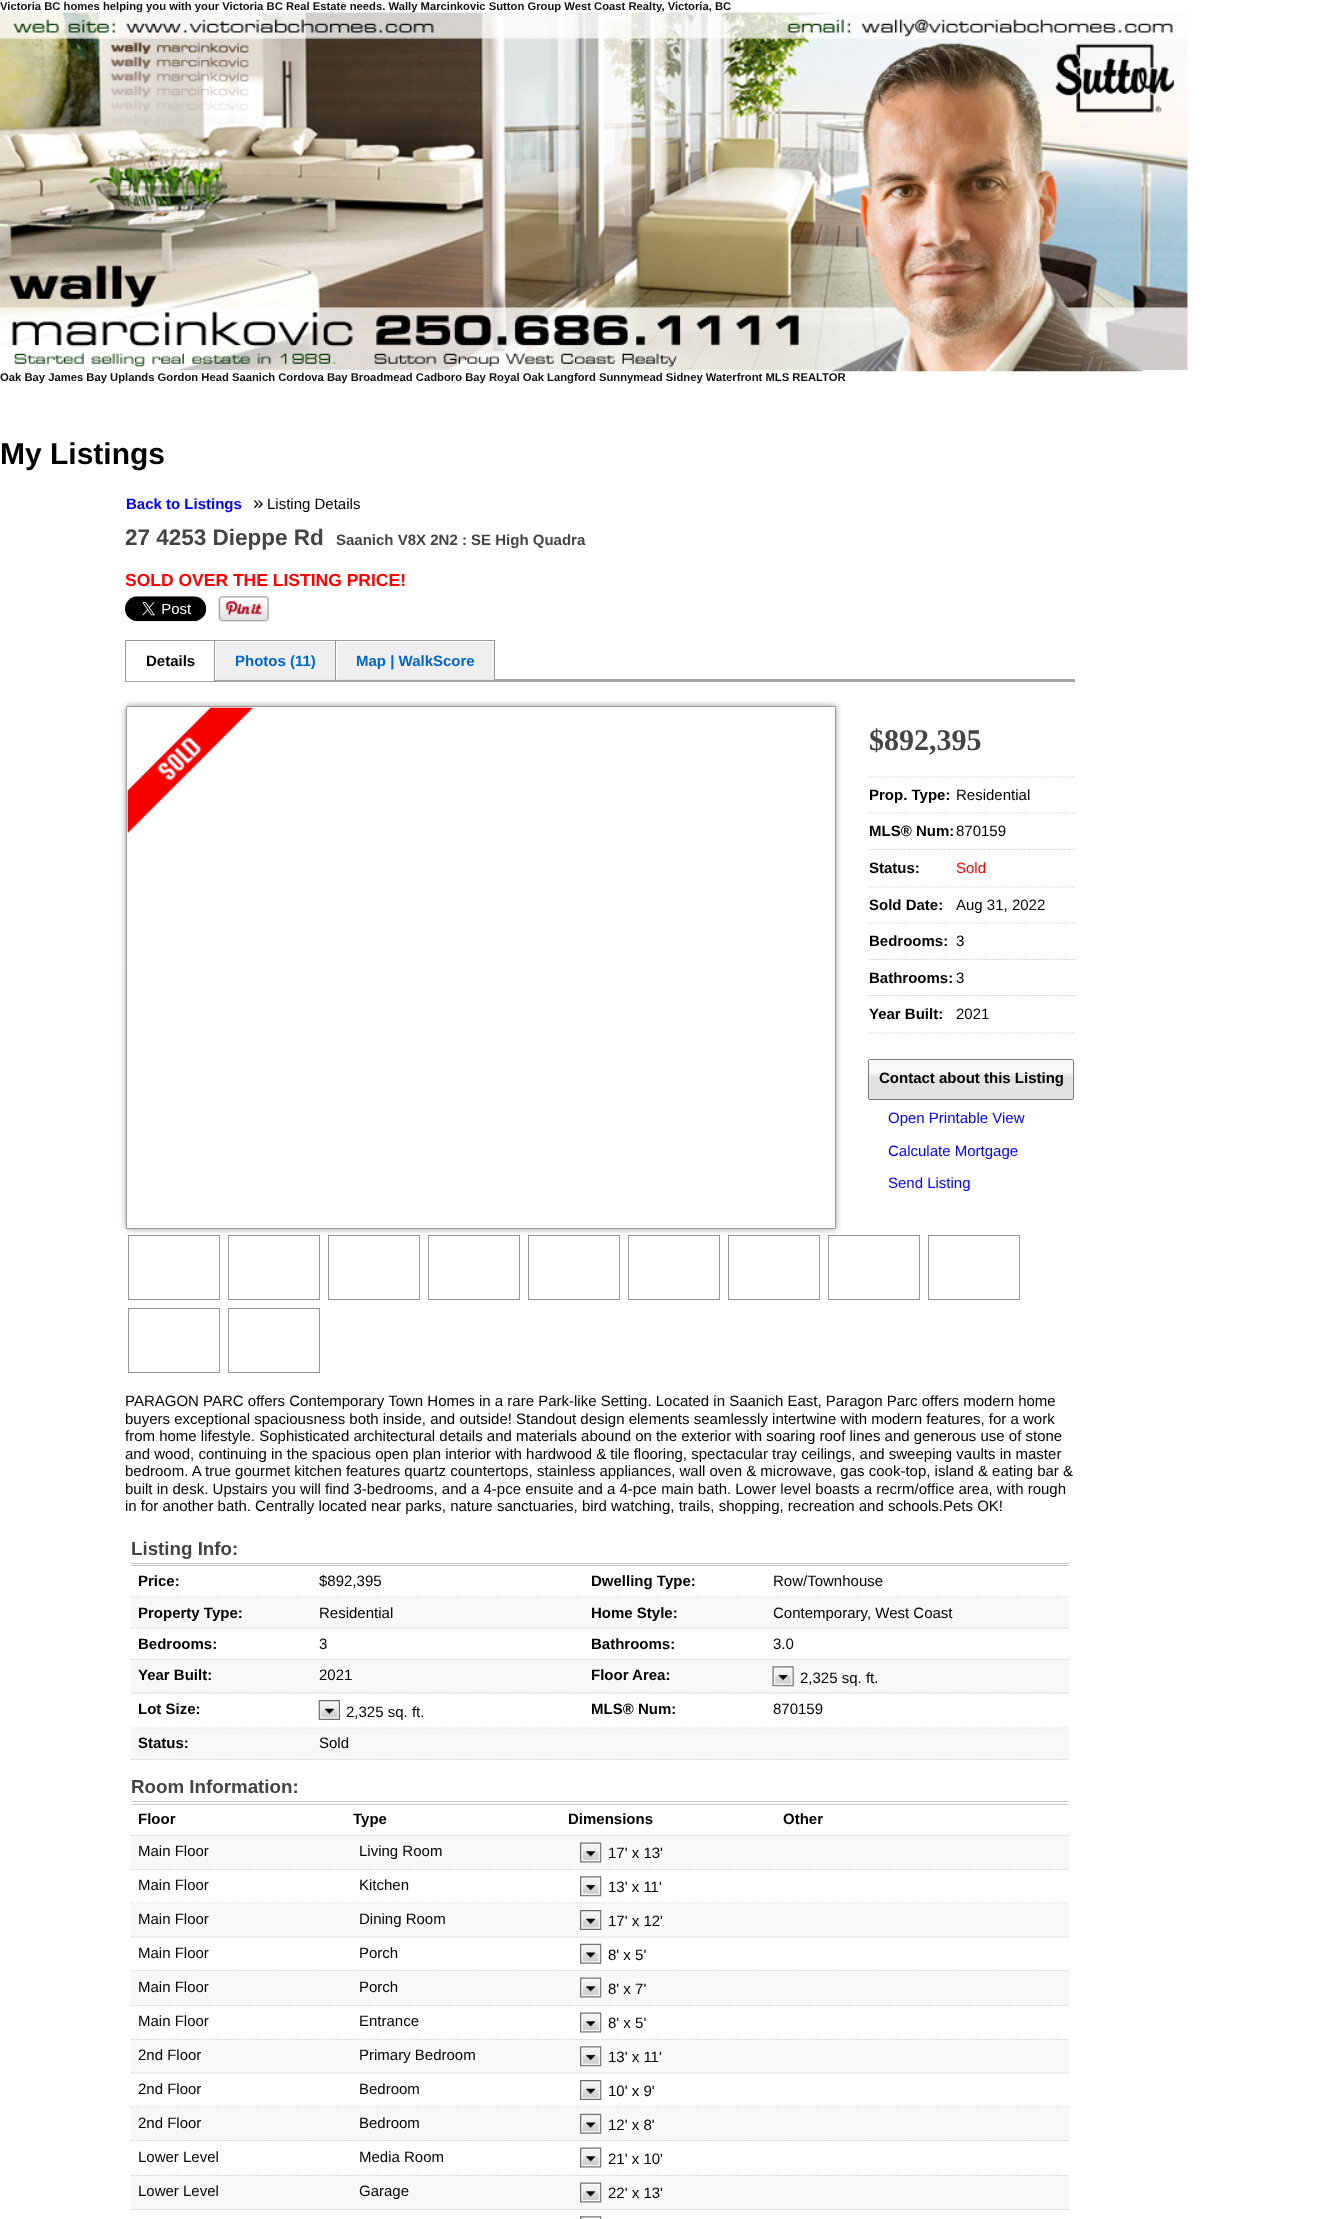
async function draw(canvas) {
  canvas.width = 1318
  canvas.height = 2219
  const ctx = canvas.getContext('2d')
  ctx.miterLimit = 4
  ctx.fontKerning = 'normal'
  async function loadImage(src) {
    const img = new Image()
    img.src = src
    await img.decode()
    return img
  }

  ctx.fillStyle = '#fff'
  ctx.fillRect(0, 0, 1318, 2219)
  ctx.font = 'bold 11.25px Liberation Sans'
  ctx.fillStyle = '#101010'
  ctx.fillText('Victoria BC homes helping you with your Victoria BC Real Estate needs. Wally Marcinkovic Sutton Group West Coast Realty, Victoria, BC', 0, 10)
  ctx.drawImage(await loadImage('image0.png'), 0, 12, 1188, 360)
  ctx.fillText('Oak Bay James Bay Uplands Gordon Head Saanich Cordova Bay Broadmead Cadboro Bay Royal Oak Langford Sunnymead Sidney Waterfront MLS REALTOR', 0, 381)
  ctx.font = 'bold 30px Liberation Sans'
  ctx.fillStyle = '#000'
  ctx.fillText('My Listings', 0, 464)
  ctx.font = 'bold 15px Liberation Sans'
  ctx.fillStyle = '#00f'
  ctx.fillText('Back to Listings', 126, 509)
  ctx.font = '18.75px Liberation Sans'
  ctx.fillStyle = '#000'
  ctx.fillText('»', 253, 509)
  ctx.font = '15px Liberation Sans'
  ctx.fillText('Listing Details', 267, 509)
  ctx.font = 'bold 22.5px Liberation Sans'
  ctx.fillStyle = '#444'
  ctx.fillText('27 4253 Dieppe Rd', 125, 545)
  ctx.font = 'bold 15px Liberation Sans'
  ctx.fillText('Saanich V8X 2N2 : SE High Quadra', 336, 545)
  ctx.font = 'bold 17.5px Liberation Sans'
  ctx.fillStyle = '#f00'
  ctx.fillText('SOLD OVER THE LISTING PRICE!', 125, 586)
  ctx.drawImage(await loadImage('image1.png'), 125, 596, 82, 26)
  ctx.drawImage(await loadImage('image2.png'), 218, 596, 51, 26)
  ctx.fillStyle = '#a4a4a4'
  ctx.fillRect(125, 679, 950, 3)
  ctx.fillStyle = '#999'
  ctx.fillRect(125, 640, 1, 41)
  ctx.fillStyle = '#fff'
  ctx.fillRect(126, 679, 88, 2)
  ctx.fillStyle = '#999'
  ctx.fillRect(126, 640, 369, 1)
  ctx.fillRect(214, 640, 1, 41)
  ctx.font = 'bold 15px Liberation Sans'
  ctx.fillStyle = '#000'
  ctx.fillText('Details', 146, 666)
  ctx.fillStyle = '#efefef'
  ctx.fillRect(215, 642, 120, 39)
  ctx.drawImage(await loadImage('image3.png'), 215, 679, 120, 2)
  ctx.fillStyle = '#999'
  ctx.fillRect(335, 640, 1, 41)
  ctx.fillStyle = '#fff'
  ctx.fillRect(215, 641, 1, 39)
  ctx.fillStyle = '#06c'
  ctx.fillText('Photos (11)', 235, 666)
  ctx.fillStyle = '#efefef'
  ctx.fillRect(336, 642, 158, 39)
  ctx.drawImage(await loadImage('image4.png'), 336, 679, 158, 2)
  ctx.fillStyle = '#999'
  ctx.fillRect(494, 640, 1, 41)
  ctx.fillStyle = '#fff'
  ctx.fillRect(336, 641, 1, 39)
  ctx.fillStyle = '#06c'
  ctx.fillText('Map | WalkScore', 356, 666)
  ctx.fillStyle = '#999'
  ctx.filter = 'blur(3px)'
  ctx.beginPath()
  ctx.rect(126, 706, 710, 523)
  ctx.fill()
  ctx.filter = 'none'
  ctx.fillStyle = '#fff'
  ctx.beginPath()
  ctx.rect(126.5, 706.5, 709, 522)
  ctx.fill()
  ctx.strokeStyle = '#999'
  ctx.stroke()
  ctx.drawImage(await loadImage('image5.png'), 127, 707, 126, 126)
  ctx.beginPath()
  ctx.moveTo(869, 777)
  ctx.lineTo(1075, 777)
  ctx.strokeStyle = '#ccc'
  ctx.lineWidth = 1.2
  ctx.setLineDash([1.25, 1.25])
  ctx.stroke()
  ctx.font = 'bold 30px Liberation Serif'
  ctx.fillStyle = '#444'
  ctx.fillText('$892,395', 869, 750)
  ctx.beginPath()
  ctx.moveTo(869, 813)
  ctx.lineTo(1075, 813)
  ctx.stroke()
  ctx.font = 'bold 15px Liberation Sans'
  ctx.fillStyle = '#000'
  ctx.fillText('Prop. Type:', 869, 800)
  ctx.font = '15px Liberation Sans'
  ctx.fillText('Residential', 956, 800)
  ctx.beginPath()
  ctx.moveTo(869, 849.5)
  ctx.lineTo(1075, 849.5)
  ctx.stroke()
  ctx.font = 'bold 15px Liberation Sans'
  ctx.fillText('MLS® Num:', 869, 836)
  ctx.font = '15px Liberation Sans'
  ctx.fillText('870159', 956, 836)
  ctx.beginPath()
  ctx.moveTo(869, 887)
  ctx.lineTo(1075, 887)
  ctx.stroke()
  ctx.font = 'bold 15px Liberation Sans'
  ctx.fillText('Status:', 869, 873)
  ctx.font = '15px Liberation Sans'
  ctx.fillStyle = '#f00'
  ctx.fillText('Sold', 956, 873)
  ctx.beginPath()
  ctx.moveTo(869, 923)
  ctx.lineTo(1075, 923)
  ctx.stroke()
  ctx.font = 'bold 15px Liberation Sans'
  ctx.fillStyle = '#000'
  ctx.fillText('Sold Date:', 869, 910)
  ctx.font = '15px Liberation Sans'
  ctx.fillText('Aug 31, 2022', 956, 910)
  ctx.beginPath()
  ctx.moveTo(869, 959.5)
  ctx.lineTo(1075, 959.5)
  ctx.stroke()
  ctx.font = 'bold 15px Liberation Sans'
  ctx.fillText('Bedrooms:', 869, 946)
  ctx.font = '15px Liberation Sans'
  ctx.fillText('3', 956, 946)
  ctx.beginPath()
  ctx.moveTo(869, 995.5)
  ctx.lineTo(1075, 995.5)
  ctx.stroke()
  ctx.font = 'bold 15px Liberation Sans'
  ctx.fillText('Bathrooms:', 869, 983)
  ctx.font = '15px Liberation Sans'
  ctx.fillText('3', 956, 983)
  ctx.beginPath()
  ctx.moveTo(869, 1033)
  ctx.lineTo(1075, 1033)
  ctx.stroke()
  ctx.font = 'bold 15px Liberation Sans'
  ctx.fillText('Year Built:', 869, 1019)
  ctx.font = '15px Liberation Sans'
  ctx.fillText('2021', 956, 1019)
  ctx.fillStyle = '#787878'
  ctx.fillRect(869, 1059, 204, 1)
  ctx.fillRect(869, 1099, 204, 1)
  ctx.fillStyle = '#e2e2e2'
  ctx.fillRect(869, 1076, 204, 23)
  ctx.fillStyle = '#787878'
  ctx.fillRect(1073, 1060, 1, 39)
  ctx.fillRect(868, 1060, 1, 39)
  ctx.fillStyle = '#f9f9f9'
  ctx.fillRect(869, 1060, 204, 13)
  ctx.fillStyle = '#ededed'
  ctx.fillRect(869, 1073, 204, 3)
  ctx.font = 'bold 15px Liberation Sans'
  ctx.fillStyle = '#000'
  ctx.fillText('Contact about this Listing', 879, 1083)
  ctx.font = '15px Liberation Sans'
  ctx.fillStyle = '#00f'
  ctx.fillText('Open Printable View', 888, 1123)
  ctx.fillText('Calculate Mortgage', 888, 1156)
  ctx.fillText('Send Listing', 888, 1188)
  ctx.strokeStyle = '#999'
  ctx.lineWidth = 1
  ctx.setLineDash([])
  ctx.strokeRect(128.5, 1235.5, 91, 64)
  ctx.strokeRect(228.5, 1235.5, 91, 64)
  ctx.strokeRect(328.5, 1235.5, 91, 64)
  ctx.strokeRect(428.5, 1235.5, 91, 64)
  ctx.strokeRect(528.5, 1235.5, 91, 64)
  ctx.strokeRect(628.5, 1235.5, 91, 64)
  ctx.strokeRect(728.5, 1235.5, 91, 64)
  ctx.strokeRect(828.5, 1235.5, 91, 64)
  ctx.strokeRect(928.5, 1235.5, 91, 64)
  ctx.strokeRect(128.5, 1308.5, 91, 64)
  ctx.strokeRect(228.5, 1308.5, 91, 64)
  ctx.fillStyle = '#000'
  ctx.fillText('PARAGON PARC offers Contemporary Town Homes in a rare Park-like Setting. Located in Saanich East, Paragon Parc offers modern home', 125, 1406)
  ctx.fillText('buyers exceptional spaciousness both inside, and outside! Standout design elements seamlessly intertwine with modern features, for a work', 125, 1424)
  ctx.fillText('from home lifestyle. Sophisticated architectural details and materials abound on the exterior with soaring roof lines and generous use of stone', 125, 1441)
  ctx.fillText('and wood, continuing in the spacious open plan interior with hardwood & tile flooring, spectacular tray ceilings, and sweeping vaults in master', 125, 1459)
  ctx.fillText('bedroom. A true gourmet kitchen features quartz countertops, stainless appliances, wall oven & microwave, gas cook-top, island & eating bar &', 125, 1476)
  ctx.fillText('built in desk. Upstairs you will find 3-bedrooms, and a 4-pce ensuite and a 4-pce main bath. Lower level boasts a recrm/office area, with rough', 125, 1494)
  ctx.fillText('in for another bath. Centrally located near parks, nature sanctuaries, bird watching, trails, shopping, recreation and schools.Pets OK!', 125, 1511)
  ctx.fillStyle = '#ccc'
  ctx.fillRect(131, 1563, 938, 1)
  ctx.fillRect(131, 1565, 938, 1)
  ctx.font = 'bold 18.75px Liberation Sans'
  ctx.fillStyle = '#444'
  ctx.fillText('Listing Info:', 131, 1555)
  ctx.beginPath()
  ctx.moveTo(131, 1597)
  ctx.lineTo(1069, 1597)
  ctx.strokeStyle = '#ccc'
  ctx.lineWidth = 1.2
  ctx.setLineDash([1.25, 1.25])
  ctx.stroke()
  ctx.font = 'bold 15px Liberation Sans'
  ctx.fillStyle = '#000'
  ctx.fillText('Price:', 138, 1586)
  ctx.font = '15px Liberation Sans'
  ctx.fillText('$892,395', 319, 1586)
  ctx.font = 'bold 15px Liberation Sans'
  ctx.fillText('Dwelling Type:', 591, 1586)
  ctx.font = '15px Liberation Sans'
  ctx.fillText('Row/Townhouse', 773, 1586)
  ctx.fillStyle = '#f8f8f8'
  ctx.fillRect(131, 1598, 938, 31)
  ctx.beginPath()
  ctx.moveTo(131, 1628)
  ctx.lineTo(1069, 1628)
  ctx.stroke()
  ctx.font = 'bold 15px Liberation Sans'
  ctx.fillStyle = '#000'
  ctx.fillText('Property Type:', 138, 1618)
  ctx.font = '15px Liberation Sans'
  ctx.fillText('Residential', 319, 1618)
  ctx.font = 'bold 15px Liberation Sans'
  ctx.fillText('Home Style:', 591, 1618)
  ctx.font = '15px Liberation Sans'
  ctx.fillText('Contemporary, West Coast', 773, 1618)
  ctx.beginPath()
  ctx.moveTo(131, 1659.5)
  ctx.lineTo(1069, 1659.5)
  ctx.stroke()
  ctx.font = 'bold 15px Liberation Sans'
  ctx.fillText('Bedrooms:', 138, 1649)
  ctx.font = '15px Liberation Sans'
  ctx.fillText('3', 319, 1649)
  ctx.font = 'bold 15px Liberation Sans'
  ctx.fillText('Bathrooms:', 591, 1649)
  ctx.font = '15px Liberation Sans'
  ctx.fillText('3.0', 773, 1649)
  ctx.fillStyle = '#f8f8f8'
  ctx.fillRect(131, 1660, 938, 34)
  ctx.beginPath()
  ctx.moveTo(131, 1693)
  ctx.lineTo(1069, 1693)
  ctx.stroke()
  ctx.font = 'bold 15px Liberation Sans'
  ctx.fillStyle = '#000'
  ctx.fillText('Year Built:', 138, 1680)
  ctx.font = '15px Liberation Sans'
  ctx.fillText('2021', 319, 1680)
  ctx.font = 'bold 15px Liberation Sans'
  ctx.fillText('Floor Area:', 591, 1680)
  ctx.drawImage(await loadImage('image6.png'), 772, 1666, 22, 21)
  ctx.font = '15px Liberation Sans'
  ctx.fillText('2,325 sq. ft.', 800, 1683)
  ctx.beginPath()
  ctx.moveTo(131, 1728)
  ctx.lineTo(1069, 1728)
  ctx.stroke()
  ctx.font = 'bold 15px Liberation Sans'
  ctx.fillText('Lot Size:', 138, 1714)
  ctx.drawImage(await loadImage('image7.png'), 318, 1700, 22, 20)
  ctx.font = '15px Liberation Sans'
  ctx.fillText('2,325 sq. ft.', 346, 1717)
  ctx.font = 'bold 15px Liberation Sans'
  ctx.fillText('MLS® Num:', 591, 1714)
  ctx.font = '15px Liberation Sans'
  ctx.fillText('870159', 773, 1714)
  ctx.fillStyle = '#f8f8f8'
  ctx.fillRect(131, 1729, 938, 31)
  ctx.beginPath()
  ctx.moveTo(131, 1759.5)
  ctx.lineTo(1069, 1759.5)
  ctx.stroke()
  ctx.font = 'bold 15px Liberation Sans'
  ctx.fillStyle = '#000'
  ctx.fillText('Status:', 138, 1748)
  ctx.font = '15px Liberation Sans'
  ctx.fillText('Sold', 319, 1748)
  ctx.fillStyle = '#ccc'
  ctx.fillRect(131, 1801, 938, 1)
  ctx.fillRect(131, 1804, 938, 1)
  ctx.font = 'bold 18.75px Liberation Sans'
  ctx.fillStyle = '#444'
  ctx.fillText('Room Information:', 131, 1793)
  ctx.beginPath()
  ctx.moveTo(131, 1835.5)
  ctx.lineTo(1069, 1835.5)
  ctx.stroke()
  ctx.font = 'bold 15px Liberation Sans'
  ctx.fillStyle = '#000'
  ctx.fillText('Floor', 138, 1824)
  ctx.fillText('Type', 353, 1824)
  ctx.fillText('Dimensions', 568, 1824)
  ctx.fillText('Other', 783, 1824)
  ctx.fillStyle = '#f8f8f8'
  ctx.fillRect(131, 1836, 938, 34)
  ctx.beginPath()
  ctx.moveTo(131, 1869.5)
  ctx.lineTo(1069, 1869.5)
  ctx.stroke()
  ctx.font = '15px Liberation Sans'
  ctx.fillStyle = '#000'
  ctx.fillText('Main Floor', 138, 1856)
  ctx.fillText('Living Room', 359, 1856)
  ctx.drawImage(await loadImage('image8.png'), 580, 1842, 22, 21)
  ctx.fillText('17\' x 13\'', 608, 1858)
  ctx.beginPath()
  ctx.moveTo(131, 1903)
  ctx.lineTo(1069, 1903)
  ctx.stroke()
  ctx.fillText('Main Floor', 138, 1890)
  ctx.fillText('Kitchen', 359, 1890)
  ctx.drawImage(await loadImage('image9.png'), 580, 1876, 22, 21)
  ctx.fillText('13\' x 11\'', 608, 1892)
  ctx.fillStyle = '#f8f8f8'
  ctx.fillRect(131, 1904, 938, 34)
  ctx.beginPath()
  ctx.moveTo(131, 1937)
  ctx.lineTo(1069, 1937)
  ctx.stroke()
  ctx.fillStyle = '#000'
  ctx.fillText('Main Floor', 138, 1924)
  ctx.fillText('Dining Room', 359, 1924)
  ctx.drawImage(await loadImage('image10.png'), 580, 1910, 22, 20)
  ctx.fillText('17\' x 12\'', 608, 1926)
  ctx.beginPath()
  ctx.moveTo(131, 1970.5)
  ctx.lineTo(1069, 1970.5)
  ctx.stroke()
  ctx.fillText('Main Floor', 138, 1958)
  ctx.fillText('Porch', 359, 1958)
  ctx.drawImage(await loadImage('image11.png'), 580, 1943, 22, 21)
  ctx.fillText('8\' x 5\'', 608, 1960)
  ctx.fillStyle = '#f8f8f8'
  ctx.fillRect(131, 1971, 938, 35)
  ctx.beginPath()
  ctx.moveTo(131, 2005.5)
  ctx.lineTo(1069, 2005.5)
  ctx.stroke()
  ctx.fillStyle = '#000'
  ctx.fillText('Main Floor', 138, 1992)
  ctx.fillText('Porch', 359, 1992)
  ctx.drawImage(await loadImage('image8.png'), 580, 1977, 22, 21)
  ctx.fillText('8\' x 7\'', 608, 1994)
  ctx.beginPath()
  ctx.moveTo(131, 2039.5)
  ctx.lineTo(1069, 2039.5)
  ctx.stroke()
  ctx.fillText('Main Floor', 138, 2026)
  ctx.fillText('Entrance', 359, 2026)
  ctx.drawImage(await loadImage('image12.png'), 580, 2012, 22, 21)
  ctx.fillText('8\' x 5\'', 608, 2028)
  ctx.fillStyle = '#f8f8f8'
  ctx.fillRect(131, 2040, 938, 34)
  ctx.beginPath()
  ctx.moveTo(131, 2073)
  ctx.lineTo(1069, 2073)
  ctx.stroke()
  ctx.fillStyle = '#000'
  ctx.fillText('2nd Floor', 138, 2060)
  ctx.fillText('Primary Bedroom', 359, 2060)
  ctx.drawImage(await loadImage('image13.png'), 580, 2046, 22, 21)
  ctx.fillText('13\' x 11\'', 608, 2062)
  ctx.beginPath()
  ctx.moveTo(131, 2107)
  ctx.lineTo(1069, 2107)
  ctx.stroke()
  ctx.fillText('2nd Floor', 138, 2094)
  ctx.fillText('Bedroom', 359, 2094)
  ctx.drawImage(await loadImage('image14.png'), 580, 2080, 22, 20)
  ctx.fillText('10\' x 9\'', 608, 2096)
  ctx.fillStyle = '#f8f8f8'
  ctx.fillRect(131, 2108, 938, 33)
  ctx.beginPath()
  ctx.moveTo(131, 2140.5)
  ctx.lineTo(1069, 2140.5)
  ctx.stroke()
  ctx.fillStyle = '#000'
  ctx.fillText('2nd Floor', 138, 2128)
  ctx.fillText('Bedroom', 359, 2128)
  ctx.drawImage(await loadImage('image15.png'), 580, 2113, 22, 21)
  ctx.fillText('12\' x 8\'', 608, 2130)
  ctx.beginPath()
  ctx.moveTo(131, 2175.5)
  ctx.lineTo(1069, 2175.5)
  ctx.stroke()
  ctx.fillText('Lower Level', 138, 2162)
  ctx.fillText('Media Room', 359, 2162)
  ctx.drawImage(await loadImage('image12.png'), 580, 2147, 22, 21)
  ctx.fillText('21\' x 10\'', 608, 2164)
  ctx.fillStyle = '#f8f8f8'
  ctx.fillRect(131, 2176, 938, 34)
  ctx.beginPath()
  ctx.moveTo(131, 2209.5)
  ctx.lineTo(1069, 2209.5)
  ctx.stroke()
  ctx.fillStyle = '#000'
  ctx.fillText('Lower Level', 138, 2196)
  ctx.fillText('Garage', 359, 2196)
  ctx.drawImage(await loadImage('image8.png'), 580, 2182, 22, 21)
  ctx.fillText('22\' x 13\'', 608, 2198)
  ctx.drawImage(await loadImage('image16.png'), 580, 2216, 22, 3)
}

draw(document.querySelector('canvas'))
